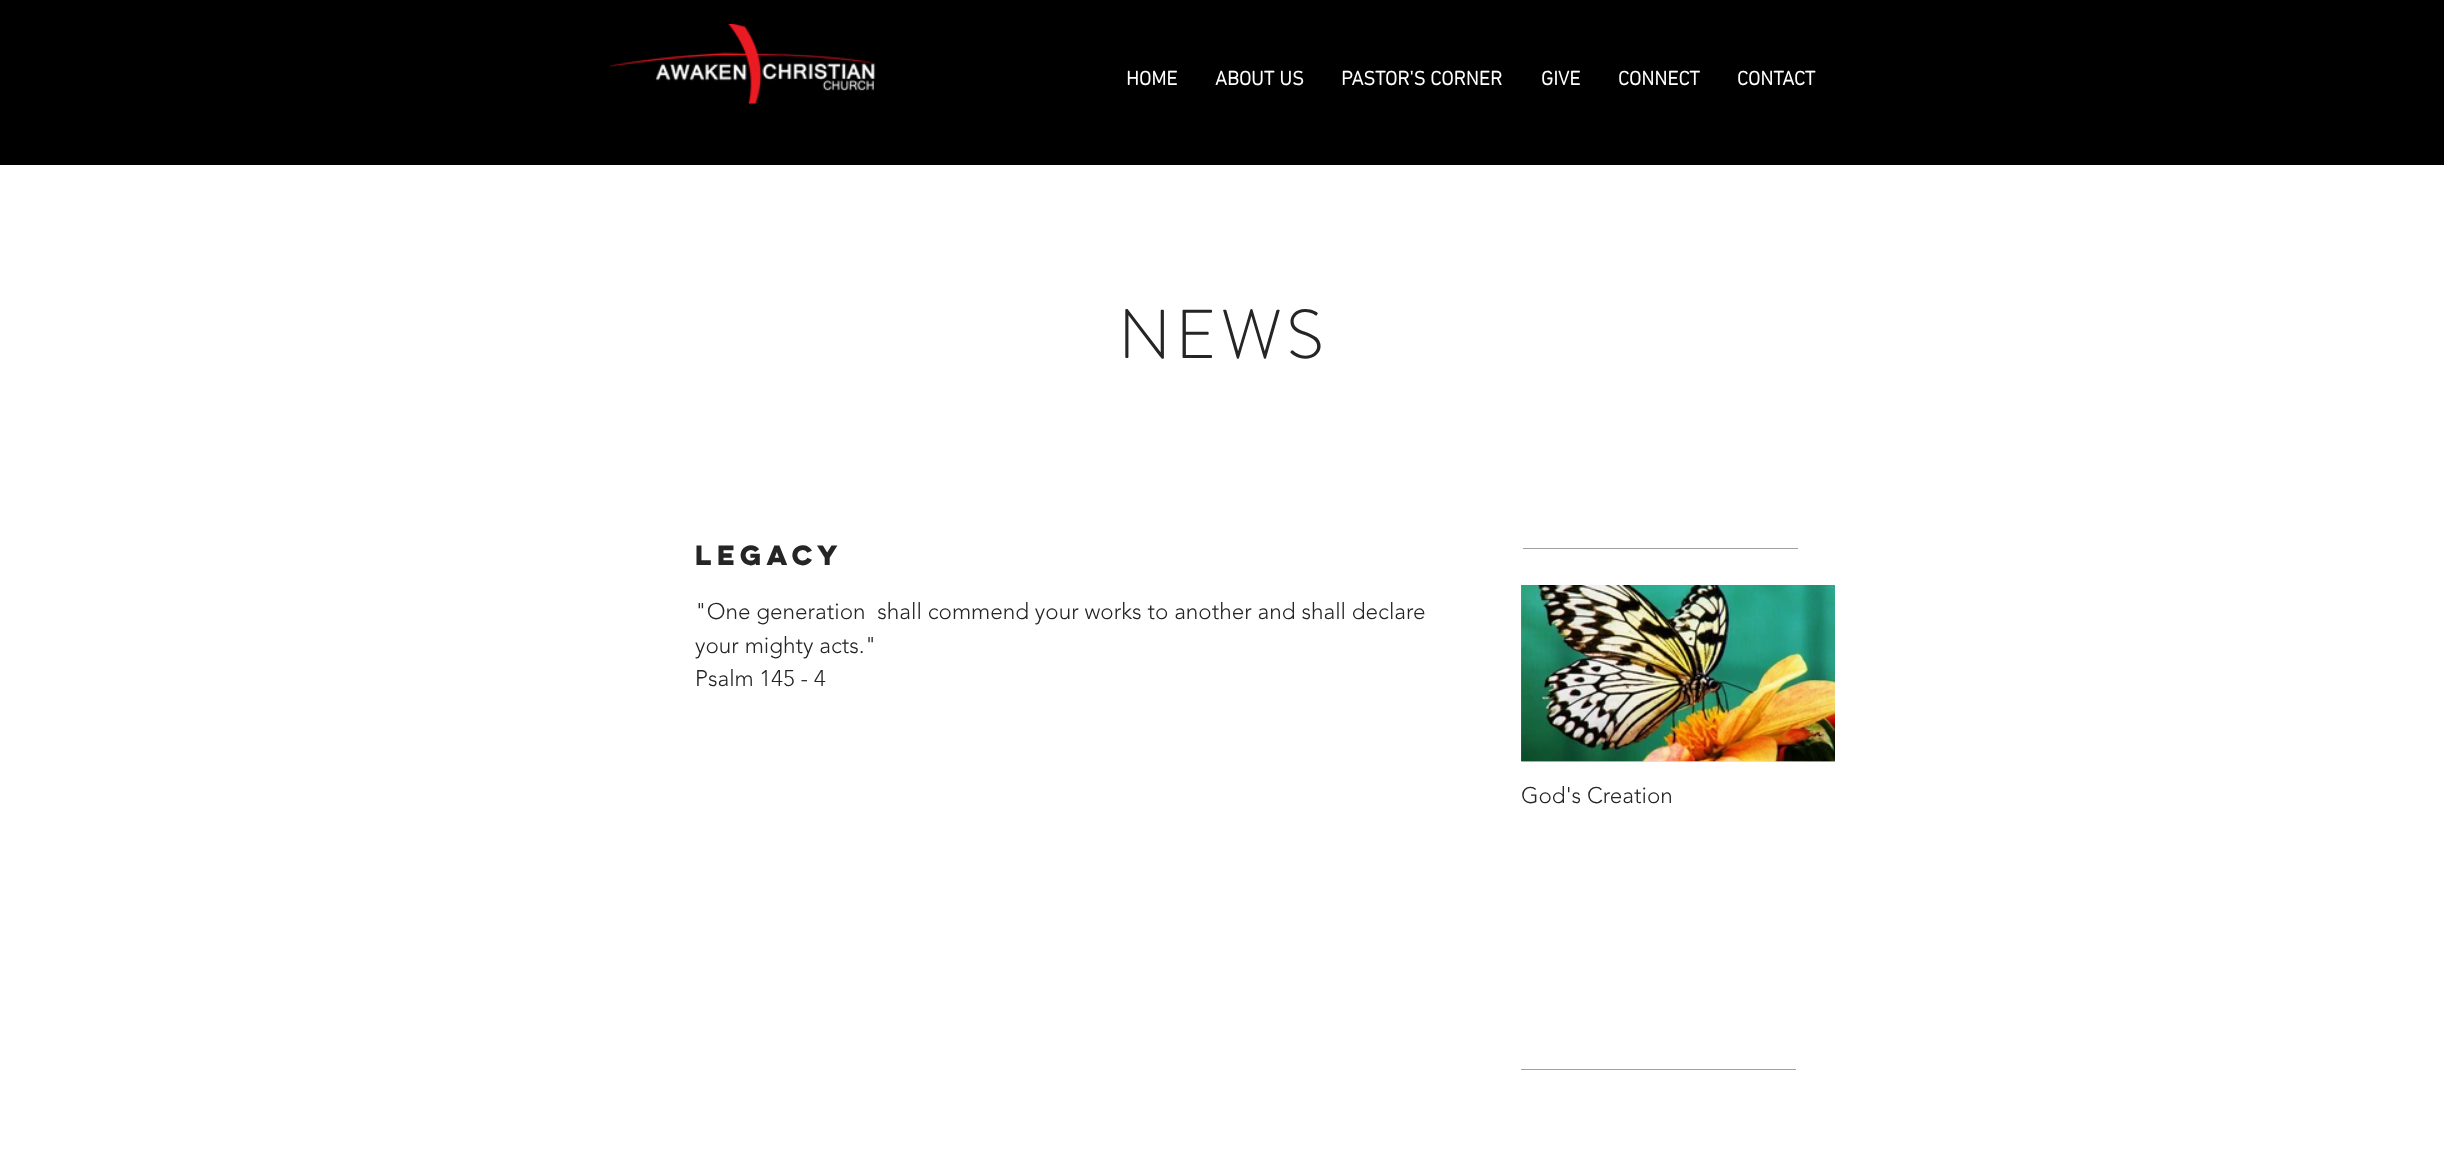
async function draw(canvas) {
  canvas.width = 2444
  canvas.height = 1153
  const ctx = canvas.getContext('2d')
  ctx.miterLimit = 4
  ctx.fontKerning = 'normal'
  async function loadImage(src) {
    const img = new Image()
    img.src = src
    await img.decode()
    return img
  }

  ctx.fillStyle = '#fff'
  ctx.fillRect(0, 0, 2444, 1153)
  ctx.fillStyle = '#000'
  ctx.fillRect(0, 0, 2444, 165)
  ctx.drawImage(await loadImage('image0.png'), 610, 23, 266, 81)
  ctx.font = 'bold 20px "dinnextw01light"'
  ctx.fillStyle = '#fff'
  ctx.fillText('HOME', 1126, 85)
  ctx.fillText('ABOUT US', 1215, 85)
  ctx.fillText('PASTOR\'S CORNER', 1341, 85)
  ctx.fillText('GIVE', 1541, 85)
  ctx.fillText('CONNECT', 1618, 85)
  ctx.fillText('CONTACT', 1737, 85)
  ctx.letterSpacing = '4px'
  ctx.font = '300 69px "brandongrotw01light"'
  ctx.fillStyle = '#252525'
  ctx.fillText('NEWS', 1118, 358)
  ctx.letterSpacing = '0px'
  ctx.font = 'bold 25px "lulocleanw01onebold"'
  ctx.fillText('Legacy', 695, 565)
  ctx.font = '300 22.5px "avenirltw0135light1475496"'
  ctx.fillText('"One generation  shall commend your works to another and shall declare', 695, 619)
  ctx.fillText('your mighty acts."', 695, 653)
  ctx.fillText('Psalm 145 - 4', 695, 686)
  ctx.fillStyle = '#a0a09f'
  ctx.fillRect(1523, 548, 275, 1)
  ctx.drawImage(await loadImage('image1.png'), 1521, 585, 314, 177)
  ctx.drawImage(await loadImage('image2.png'), 1521, 585, 314, 177)
  ctx.fillStyle = '#252525'
  ctx.fillText('God\'s Creation', 1521, 803)
  ctx.fillStyle = '#a0a09f'
  ctx.fillRect(1521, 1069, 275, 1)
}

draw(document.querySelector('canvas'))
